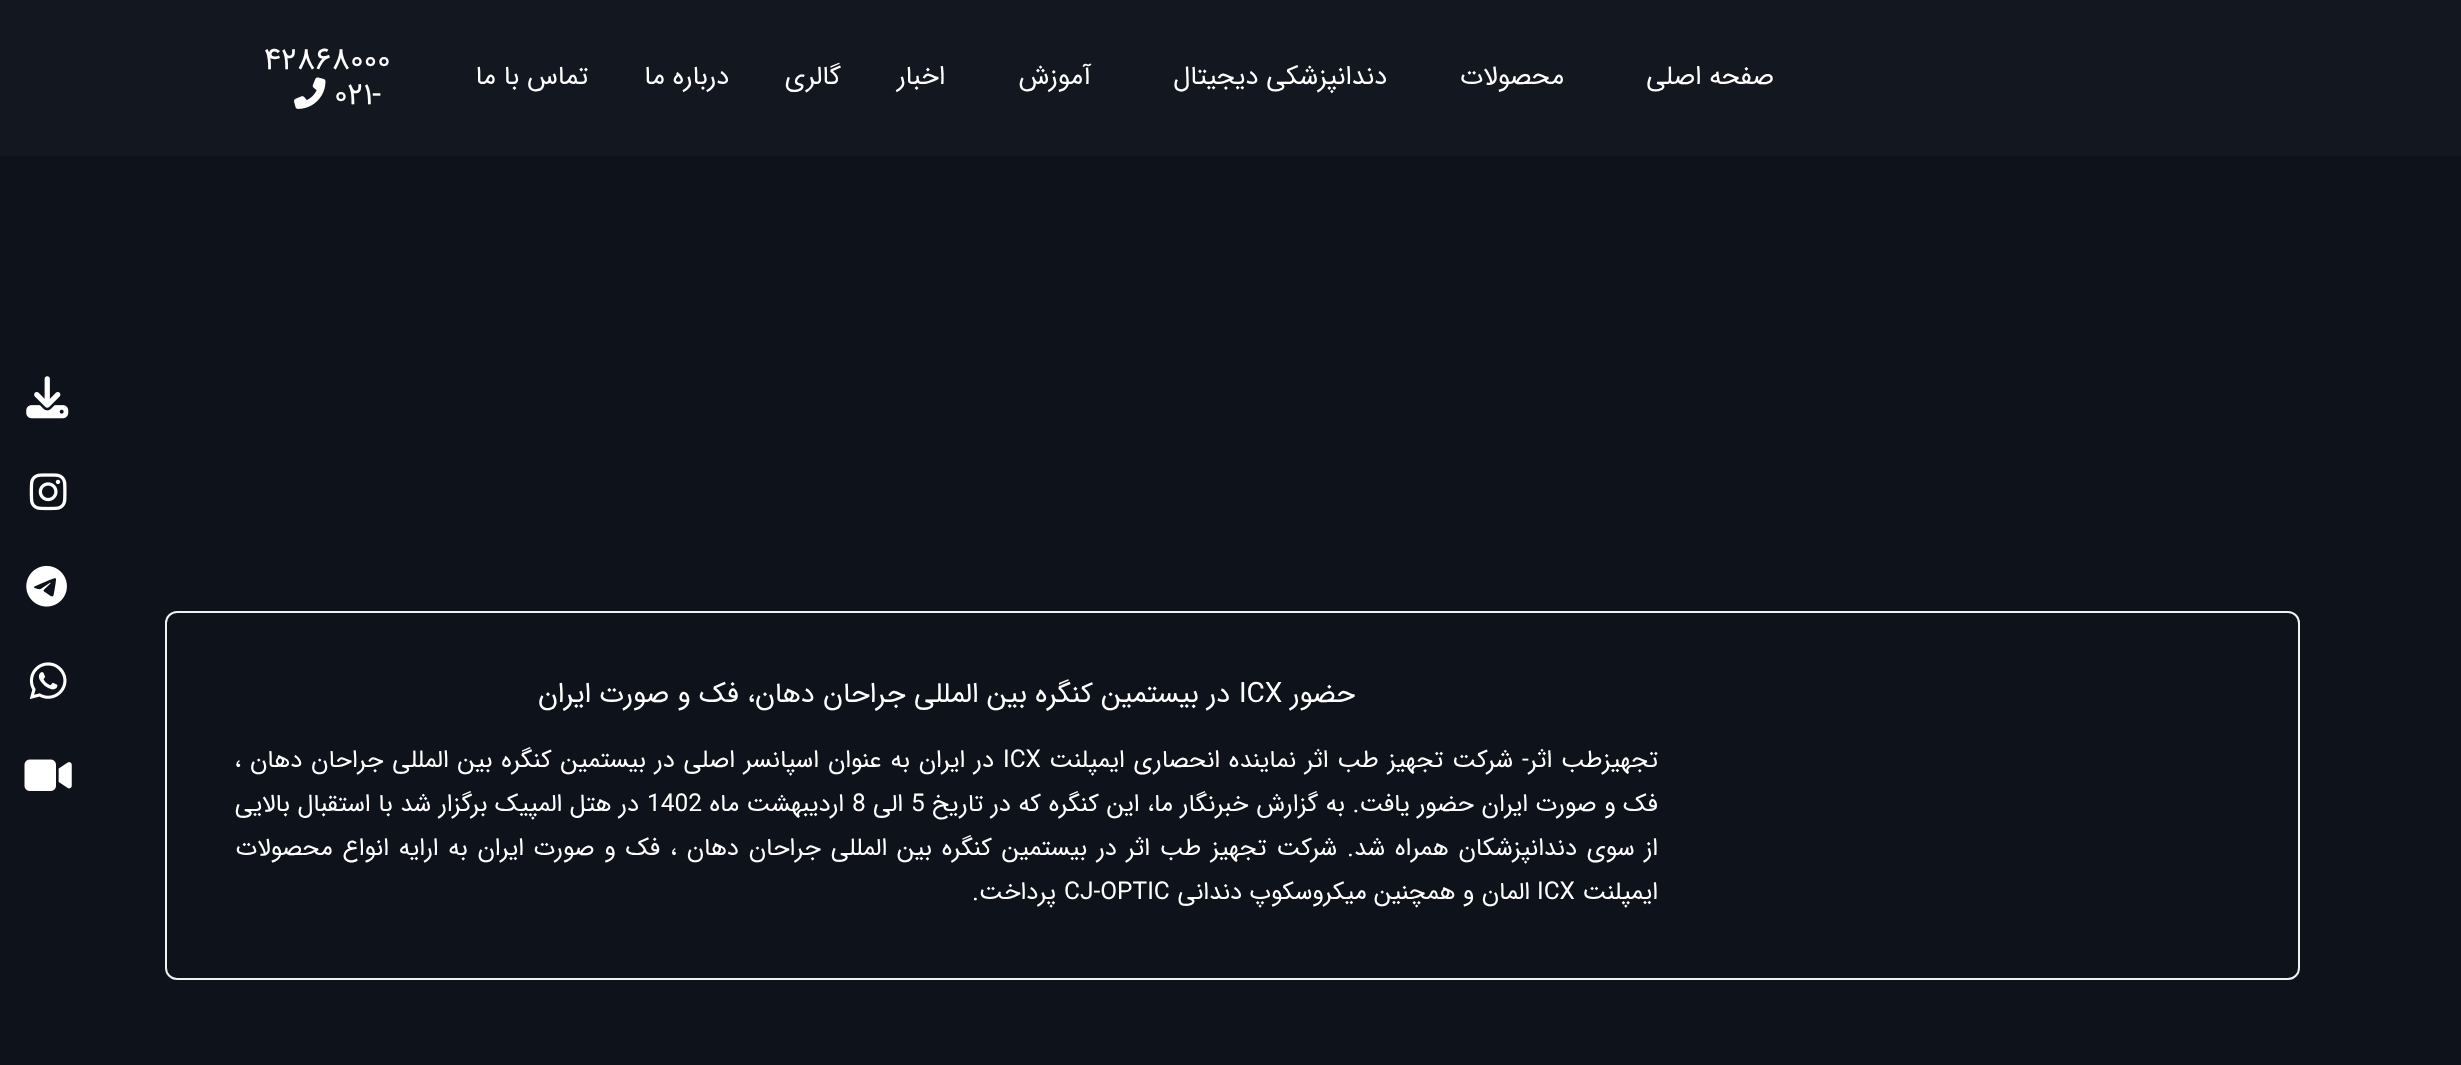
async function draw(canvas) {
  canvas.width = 2461
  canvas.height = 1065
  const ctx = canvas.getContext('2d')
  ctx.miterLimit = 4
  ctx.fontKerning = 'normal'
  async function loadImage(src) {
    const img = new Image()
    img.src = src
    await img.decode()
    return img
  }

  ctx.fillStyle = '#0e121a'
  ctx.fillRect(0, 0, 2461, 1065)
  ctx.fillStyle = '#13171f'
  ctx.fillRect(0, 0, 2461, 156)
  ctx.direction = 'rtl'
  ctx.font = '26.25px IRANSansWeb'
  ctx.fillStyle = '#fff'
  ctx.fillText('صفحه اصلی', 1774, 84)
  ctx.fillText('محصولات', 1564, 84)
  ctx.fillText('دندانپزشکی دیجیتال', 1387, 84)
  ctx.fillText('آموزش', 1091, 84)
  ctx.fillText('اخبار', 945, 84)
  ctx.fillText('گالری', 841, 84)
  ctx.fillText('درباره ما', 729, 84)
  ctx.fillText('تماس با ما', 588, 84)
  ctx.direction = 'ltr'
  ctx.font = '31.5px IRANSansWeb'
  ctx.fillText('۴۲۸۶۸۰۰۰', 264, 69)
  ctx.fillText('۰۲۱-', 334, 104)
  ctx.drawImage(await loadImage('image0.png'), 294, 77, 32, 32)
  ctx.beginPath()
  ctx.roundRect(166, 612, 2133, 367, 11)
  ctx.strokeStyle = '#f1f1f1'
  ctx.lineWidth = 2
  ctx.stroke()
  ctx.direction = 'rtl'
  ctx.font = '28px IRANSansWeb'
  ctx.fillText('حضور', 1355, 702)
  ctx.direction = 'ltr'
  ctx.fillText('ICX', 1239, 702)
  ctx.direction = 'rtl'
  ctx.fillText('در بیستمین کنگره بین المللی جراحان دهان، فک و صورت ایران', 1230, 702)
  ctx.wordSpacing = '1.5px'
  ctx.font = '24.5px IRANSansWeb'
  ctx.fillText('تجهیزطب اثر- شرکت تجهیز طب اثر نماینده انحصاری ایمپلنت', 1658, 767)
  ctx.wordSpacing = '0px'
  ctx.direction = 'ltr'
  ctx.fillText('ICX', 1003, 767)
  ctx.wordSpacing = '1.5px'
  ctx.direction = 'rtl'
  ctx.fillText('در ایران به عنوان اسپانسر اصلی در بیستمین کنگره بین المللی جراحان دهان ،', 994, 767)
  ctx.wordSpacing = '0.25px'
  ctx.fillText('فک و صورت ایران حضور یافت. به گزارش خبرنگار ما، این کنگره که در تاریخ', 1658, 811)
  ctx.wordSpacing = '0px'
  ctx.direction = 'ltr'
  ctx.fillText('5', 911, 811)
  ctx.direction = 'rtl'
  ctx.fillText('الی', 903, 811)
  ctx.direction = 'ltr'
  ctx.fillText('8', 852, 811)
  ctx.direction = 'rtl'
  ctx.fillText('اردیبهشت ماه', 844, 811)
  ctx.direction = 'ltr'
  ctx.fillText('1402', 647, 811)
  ctx.wordSpacing = '0.25px'
  ctx.direction = 'rtl'
  ctx.fillText('در هتل المپیک برگزار شد با استقبال بالایی', 639, 811)
  ctx.wordSpacing = '2.4px'
  ctx.fillText('از سوی دندانپزشکان همراه شد. شرکت تجهیز طب اثر در بیستمین کنگره بین المللی جراحان دهان ، فک و صورت ایران به ارایه انواع محصولات', 1658, 855)
  ctx.wordSpacing = '0px'
  ctx.fillText('ایمپلنت', 1658, 899)
  ctx.direction = 'ltr'
  ctx.fillText('ICX', 1537, 899)
  ctx.direction = 'rtl'
  ctx.fillText('المان و همچنین میکروسکوپ دندانی', 1530, 899)
  ctx.direction = 'ltr'
  ctx.fillText('CJ-OPTIC', 1064, 899)
  ctx.direction = 'rtl'
  ctx.fillText('پرداخت.', 1056, 899)
  ctx.drawImage(await loadImage('image1.png'), 26, 376, 43, 43)
  ctx.drawImage(await loadImage('image2.png'), 29, 473, 38, 38)
  ctx.drawImage(await loadImage('image3.png'), 26, 565, 41, 42)
  ctx.drawImage(await loadImage('image4.png'), 29, 662, 38, 37)
  ctx.drawImage(await loadImage('image5.png'), 24, 759, 48, 32)
}

draw(document.querySelector('canvas'))
